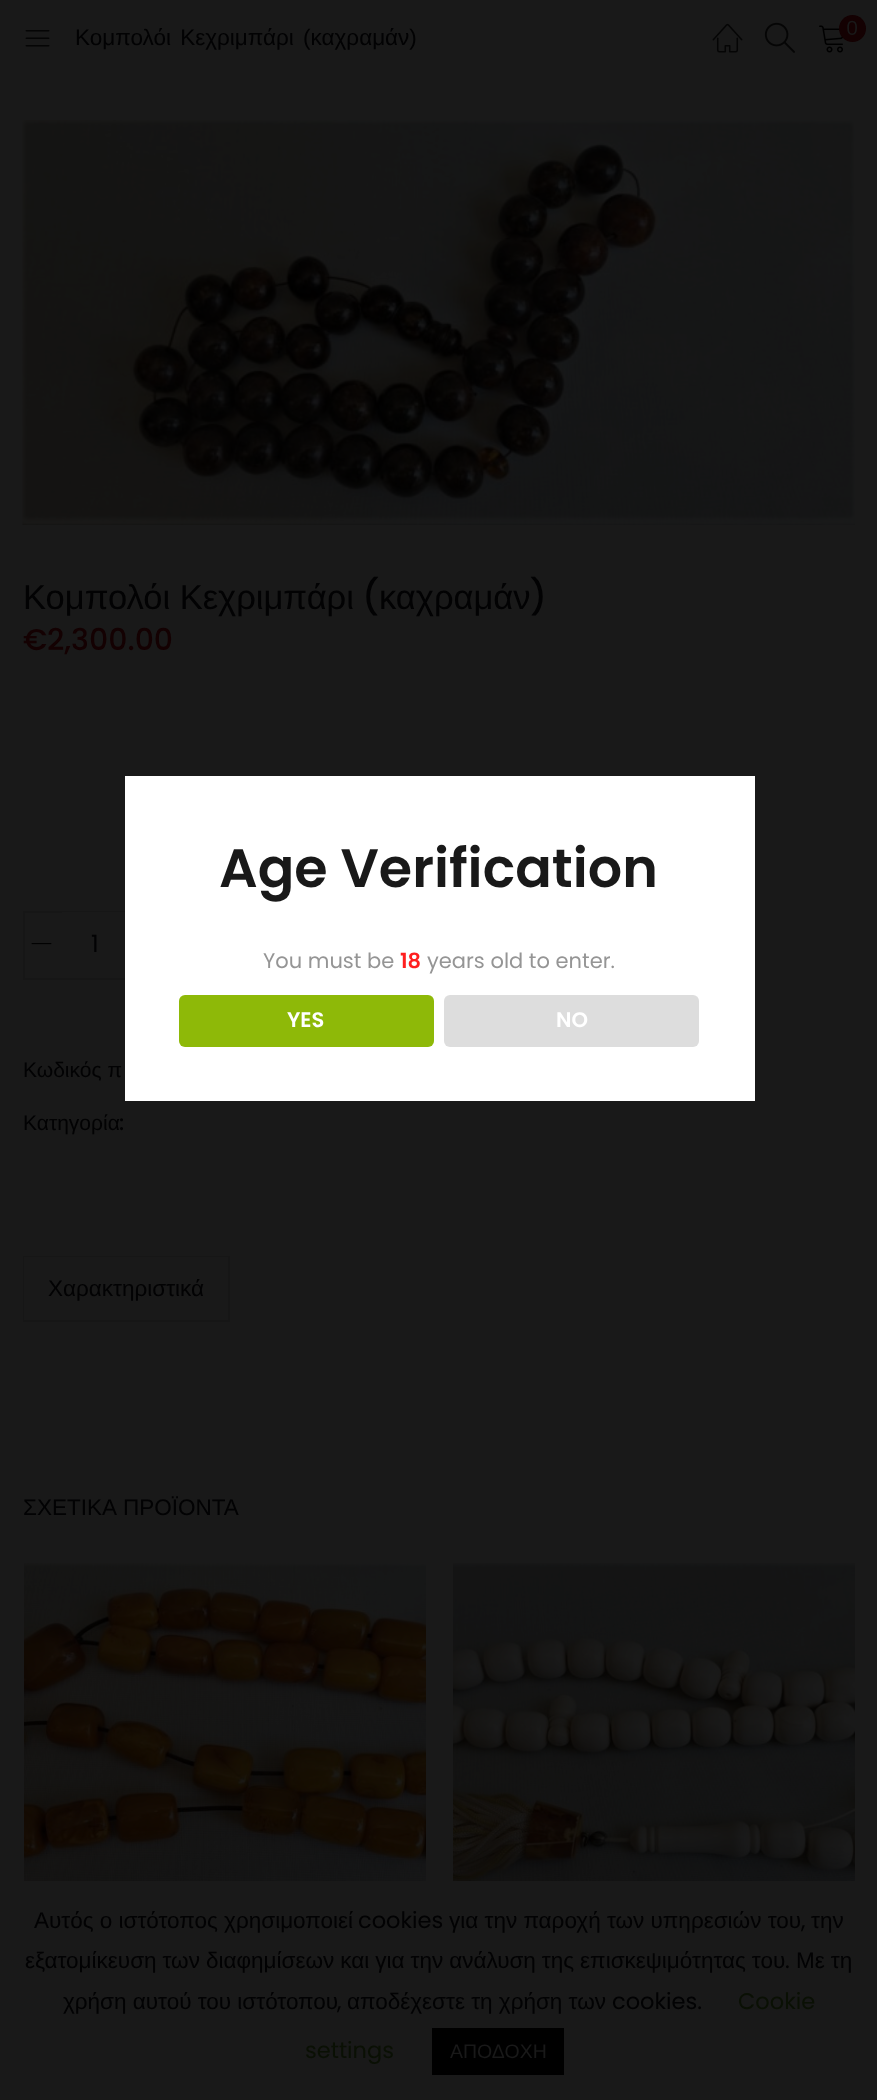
async function draw(canvas) {
  canvas.width = 877
  canvas.height = 2100
  const ctx = canvas.getContext('2d')
  ctx.miterLimit = 4
  ctx.fontKerning = 'normal'
  async function loadImage(src) {
    const img = new Image()
    img.src = src
    await img.decode()
    return img
  }

  ctx.fillStyle = '#191919'
  ctx.fillRect(0, 0, 877, 2100)
  ctx.drawImage(await loadImage('image0.png'), 25, 30, 25, 17)
  ctx.wordSpacing = '3px'
  ctx.font = '22.5px Liberation Sans'
  ctx.fillStyle = '#020203'
  ctx.fillText('Κομπολόι Κεχριμπάρι (καχραμάν)', 75, 45)
  ctx.drawImage(await loadImage('image1.png'), 712, 23, 31, 30)
  ctx.drawImage(await loadImage('image2.png'), 764, 22, 31, 31)
  ctx.drawImage(await loadImage('image3.png'), 819, 25, 24, 28)
  ctx.fillStyle = '#140102'
  ctx.beginPath()
  ctx.arc(852.5, 28.5, 13.5, 0, 2 * Math.PI)
  ctx.fill()
  ctx.wordSpacing = '0px'
  ctx.font = '19.5px Poppins'
  ctx.fillStyle = '#191919'
  ctx.fillText('0', 846, 35)
  ctx.drawImage(await loadImage('image4.png'), 22, 120, 833, 405)
  ctx.font = '34.5px Liberation Sans'
  ctx.fillStyle = '#020203'
  ctx.fillText('Κομπολόι Κεχριμπάρι', 23, 609)
  ctx.font = '500 34.5px Poppins'
  ctx.fillText('(', 362, 609)
  ctx.font = '34.5px Liberation Sans'
  ctx.fillText('καχραμάν', 379, 609)
  ctx.font = '500 34.5px Poppins'
  ctx.fillText(')', 530, 609)
  ctx.font = '500 30px Poppins'
  ctx.fillStyle = '#140102'
  ctx.fillText('€2,300.00', 23, 650)
  ctx.strokeStyle = '#161616'
  ctx.lineWidth = 2
  ctx.strokeRect(24, 912, 142, 67)
  ctx.drawImage(await loadImage('image5.png'), 31, 943, 21, 2)
  ctx.fillStyle = '#191919'
  ctx.fillRect(62, 912, 63, 1)
  ctx.font = '24px Poppins'
  ctx.fillStyle = '#020203'
  ctx.fillText('1', 91, 952)
  ctx.font = '21px Liberation Sans'
  ctx.fillText('Κωδικός π', 23, 1077)
  ctx.fillText('Κατηγορία', 23, 1130)
  ctx.font = '500 21px Poppins'
  ctx.fillText(':', 119, 1130)
  ctx.strokeRect(24, 1257, 205, 64)
  ctx.fillStyle = '#191919'
  ctx.fillRect(24, 1257, 204, 63)
  ctx.font = '22.5px Liberation Sans'
  ctx.fillStyle = '#020203'
  ctx.fillText('Χαρακτηριστικά', 48, 1296)
  ctx.wordSpacing = '1px'
  ctx.fillText('ΣΧΕΤΙΚΑ ΠΡΟΪΟΝΤΑ', 23, 1515)
  ctx.drawImage(await loadImage('image6.png'), 24, 1563, 402, 318)
  ctx.drawImage(await loadImage('image7.png'), 453, 1563, 402, 318)
  ctx.fillStyle = '#fff'
  ctx.fillRect(125, 776, 630, 325)
  ctx.wordSpacing = '0px'
  ctx.font = '600 54px Poppins'
  ctx.fillStyle = '#191919'
  ctx.fillText('Age Verification', 219, 887)
  ctx.font = '21px Poppins'
  ctx.fillStyle = '#959595'
  ctx.fillText('You must be', 263, 968)
  ctx.font = '600 21px Poppins'
  ctx.fillStyle = '#ff1f1f'
  ctx.fillText('18', 400, 968)
  ctx.font = '21px Poppins'
  ctx.fillStyle = '#959595'
  ctx.fillText('years old to enter.', 427, 968)
  ctx.fillStyle = '#8eb908'
  ctx.beginPath()
  ctx.roundRect(179, 995, 255, 52, 6)
  ctx.fill()
  ctx.font = '600 21px Poppins'
  ctx.fillStyle = '#fff'
  ctx.fillText('YES', 287, 1027)
  ctx.fillStyle = '#ddd'
  ctx.beginPath()
  ctx.roundRect(444, 995, 255, 52, 6)
  ctx.fill()
  ctx.fillStyle = '#fff'
  ctx.fillText('NO', 556, 1027)
  ctx.font = '22.5px Liberation Sans'
  ctx.fillStyle = '#020203'
  ctx.fillText('Αυτός ο ιστότοπος χρησιμοποιεί', 34, 1928)
  ctx.font = '22.5px Poppins'
  ctx.fillText('cookies', 358, 1928)
  ctx.font = '22.5px Liberation Sans'
  ctx.fillText('για την παροχή των υπηρεσιών του', 449, 1928)
  ctx.font = '22.5px Poppins'
  ctx.fillText(',', 801, 1928)
  ctx.font = '22.5px Liberation Sans'
  ctx.fillText('την', 811, 1928)
  ctx.wordSpacing = '-0.25px'
  ctx.fillText('εξατομίκευση των διαφημίσεων και για την ανάλυση της επισκεψιμότητας του', 25, 1968)
  ctx.wordSpacing = '0px'
  ctx.font = '22.5px Poppins'
  ctx.fillText('.', 785, 1968)
  ctx.wordSpacing = '-0.25px'
  ctx.font = '22.5px Liberation Sans'
  ctx.fillText('Με τη', 796, 1968)
  ctx.wordSpacing = '0px'
  ctx.fillText('χρήση αυτού του ιστότοπου', 63, 2009)
  ctx.font = '22.5px Poppins'
  ctx.fillText(',', 337, 2009)
  ctx.font = '22.5px Liberation Sans'
  ctx.fillText('αποδέχεστε τη χρήση των', 347, 2009)
  ctx.font = '22.5px Poppins'
  ctx.fillText('cookies.', 612, 2009)
  ctx.fillStyle = '#0a1004'
  ctx.fillText('Cookie', 738, 2009)
  ctx.fillText('settings', 305, 2058)
  ctx.fillStyle = '#000'
  ctx.fillRect(432, 2028, 132, 47)
  ctx.font = '19.5px Liberation Sans'
  ctx.fillStyle = '#191919'
  ctx.fillText('ΑΠΟΔΟΧΗ', 450, 2058)
}

draw(document.querySelector('canvas'))
